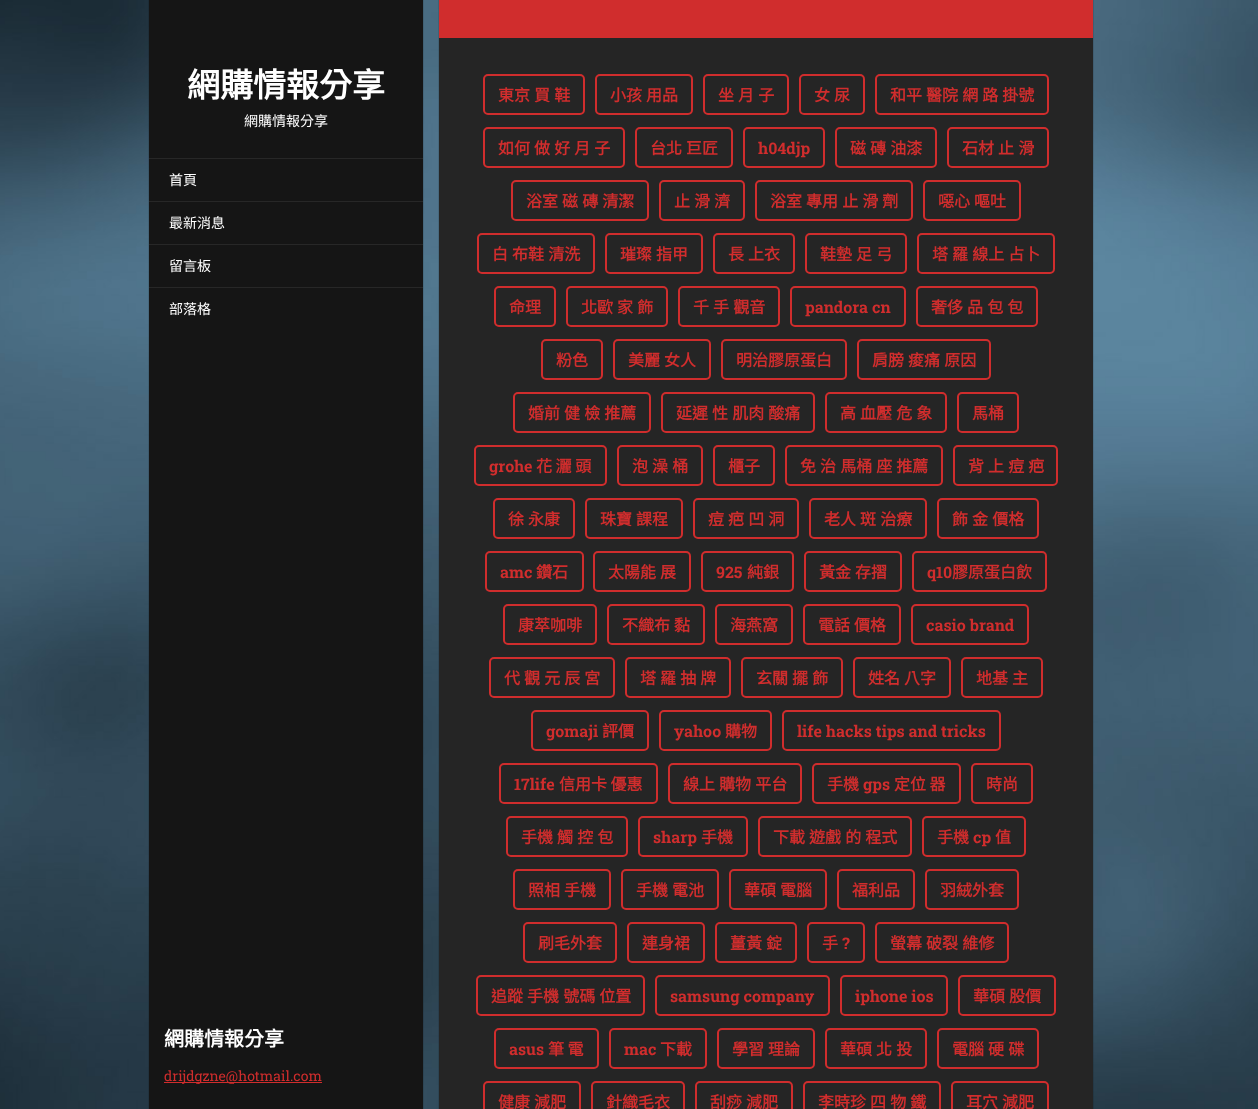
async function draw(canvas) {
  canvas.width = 1258
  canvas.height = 1109
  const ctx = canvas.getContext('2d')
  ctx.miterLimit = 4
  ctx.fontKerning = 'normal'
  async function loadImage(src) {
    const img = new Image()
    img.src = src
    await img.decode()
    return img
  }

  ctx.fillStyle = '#fff'
  ctx.fillRect(0, 0, 1258, 1109)
  ctx.drawImage(await loadImage('image0.png'), 0, 0, 1258, 1109)
  ctx.fillStyle = '#151515'
  ctx.fillRect(149, 0, 274, 1109)
  ctx.strokeStyle = '#0000001a'
  ctx.strokeRect(148.5, -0.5, 275, 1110)
  ctx.font = 'bold 33px Noto Sans CJK TC'
  ctx.fillStyle = '#fff'
  ctx.fillText('網購情報分享', 187, 97)
  ctx.font = '14px Noto Sans CJK TC'
  ctx.fillText('網購情報分享', 244, 126)
  ctx.fillStyle = '#272727'
  ctx.fillRect(149, 158, 274, 1)
  ctx.fillStyle = '#fff'
  ctx.fillText('首頁', 169, 185)
  ctx.fillStyle = '#272727'
  ctx.fillRect(149, 201, 274, 1)
  ctx.fillStyle = '#fff'
  ctx.fillText('最新消息', 169, 228)
  ctx.fillStyle = '#272727'
  ctx.fillRect(149, 244, 274, 1)
  ctx.fillStyle = '#fff'
  ctx.fillText('留言板', 169, 271)
  ctx.fillStyle = '#272727'
  ctx.fillRect(149, 287, 274, 1)
  ctx.fillStyle = '#fff'
  ctx.fillText('部落格', 169, 314)
  ctx.font = 'bold 20px Noto Sans CJK TC'
  ctx.fillText('網購情報分享', 164, 1046)
  ctx.fillStyle = '#d02d2d'
  ctx.fillRect(164, 1082, 158, 1)
  ctx.font = '14px Roboto Slab'
  ctx.fillText('drijdgzne@hotmail.com', 164, 1081)
  ctx.strokeRect(438.5, -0.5, 655, 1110)
  ctx.fillRect(439, 0, 654, 38)
  ctx.fillStyle = '#252525'
  ctx.fillRect(439, 38, 654, 1071)
  ctx.beginPath()
  ctx.roundRect(484, 75, 100, 39, 4)
  ctx.strokeStyle = '#d02d2d'
  ctx.lineWidth = 2
  ctx.stroke()
  ctx.wordSpacing = '0.5px'
  ctx.font = 'bold 16px Noto Sans CJK TC'
  ctx.fillStyle = '#d02d2d'
  ctx.fillText('東京 買 鞋', 498, 101)
  ctx.beginPath()
  ctx.roundRect(596, 75, 96, 39, 4)
  ctx.stroke()
  ctx.fillText('小孩 用品', 610, 101)
  ctx.beginPath()
  ctx.roundRect(704, 75, 84, 39, 4)
  ctx.stroke()
  ctx.fillText('坐 月 子', 718, 101)
  ctx.beginPath()
  ctx.roundRect(800, 75, 64, 39, 4)
  ctx.stroke()
  ctx.fillText('女 尿', 814, 101)
  ctx.beginPath()
  ctx.roundRect(876, 75, 172, 39, 4)
  ctx.stroke()
  ctx.fillText('和平 醫院 網 路 掛號', 890, 101)
  ctx.beginPath()
  ctx.roundRect(484, 128, 140, 39, 4)
  ctx.stroke()
  ctx.fillText('如何 做 好 月 子', 498, 154)
  ctx.beginPath()
  ctx.roundRect(636, 128, 96, 39, 4)
  ctx.stroke()
  ctx.fillText('台北 巨匠', 650, 154)
  ctx.beginPath()
  ctx.roundRect(744, 128, 80, 39, 4)
  ctx.stroke()
  ctx.wordSpacing = '0px'
  ctx.font = 'bold 16px Roboto Slab'
  ctx.fillText('h04djp', 758, 154)
  ctx.beginPath()
  ctx.roundRect(836, 128, 100, 39, 4)
  ctx.stroke()
  ctx.wordSpacing = '0.5px'
  ctx.font = 'bold 16px Noto Sans CJK TC'
  ctx.fillText('磁 磚 油漆', 850, 154)
  ctx.beginPath()
  ctx.roundRect(948, 128, 100, 39, 4)
  ctx.stroke()
  ctx.fillText('石材 止 滑', 962, 154)
  ctx.beginPath()
  ctx.roundRect(512, 181, 136, 39, 4)
  ctx.stroke()
  ctx.fillText('浴室 磁 磚 清潔', 526, 207)
  ctx.beginPath()
  ctx.roundRect(660, 181, 84, 39, 4)
  ctx.stroke()
  ctx.fillText('止 滑 濟', 674, 207)
  ctx.beginPath()
  ctx.roundRect(756, 181, 156, 39, 4)
  ctx.stroke()
  ctx.fillText('浴室 專用 止 滑 劑', 770, 207)
  ctx.beginPath()
  ctx.roundRect(924, 181, 96, 39, 4)
  ctx.stroke()
  ctx.fillText('噁心 嘔吐', 938, 207)
  ctx.beginPath()
  ctx.roundRect(478, 234, 116, 39, 4)
  ctx.stroke()
  ctx.fillText('白 布鞋 清洗', 492, 260)
  ctx.beginPath()
  ctx.roundRect(606, 234, 96, 39, 4)
  ctx.stroke()
  ctx.fillText('璀璨 指甲', 620, 260)
  ctx.beginPath()
  ctx.roundRect(714, 234, 80, 39, 4)
  ctx.stroke()
  ctx.fillText('長 上衣', 728, 260)
  ctx.beginPath()
  ctx.roundRect(806, 234, 100, 39, 4)
  ctx.stroke()
  ctx.fillText('鞋墊 足 弓', 820, 260)
  ctx.beginPath()
  ctx.roundRect(918, 234, 136, 39, 4)
  ctx.stroke()
  ctx.fillText('塔 羅 線上 占卜', 932, 260)
  ctx.beginPath()
  ctx.roundRect(495, 287, 60, 39, 4)
  ctx.stroke()
  ctx.wordSpacing = '0px'
  ctx.fillText('命理', 509, 313)
  ctx.beginPath()
  ctx.roundRect(567, 287, 100, 39, 4)
  ctx.stroke()
  ctx.wordSpacing = '0.5px'
  ctx.fillText('北歐 家 飾', 581, 313)
  ctx.beginPath()
  ctx.roundRect(679, 287, 100, 39, 4)
  ctx.stroke()
  ctx.fillText('千 手 觀音', 693, 313)
  ctx.beginPath()
  ctx.roundRect(791, 287, 114, 39, 4)
  ctx.stroke()
  ctx.wordSpacing = '0px'
  ctx.font = 'bold 16px Roboto Slab'
  ctx.fillText('pandora cn', 805, 313)
  ctx.beginPath()
  ctx.roundRect(917, 287, 120, 39, 4)
  ctx.stroke()
  ctx.wordSpacing = '0.5px'
  ctx.font = 'bold 16px Noto Sans CJK TC'
  ctx.fillText('奢侈 品 包 包', 931, 313)
  ctx.beginPath()
  ctx.roundRect(542, 340, 60, 39, 4)
  ctx.stroke()
  ctx.wordSpacing = '0px'
  ctx.fillText('粉色', 556, 366)
  ctx.beginPath()
  ctx.roundRect(614, 340, 96, 39, 4)
  ctx.stroke()
  ctx.wordSpacing = '0.5px'
  ctx.fillText('美麗 女人', 628, 366)
  ctx.beginPath()
  ctx.roundRect(722, 340, 124, 39, 4)
  ctx.stroke()
  ctx.wordSpacing = '0px'
  ctx.fillText('明治膠原蛋白', 736, 366)
  ctx.beginPath()
  ctx.roundRect(858, 340, 132, 39, 4)
  ctx.stroke()
  ctx.wordSpacing = '0.5px'
  ctx.fillText('肩膀 痠痛 原因', 872, 366)
  ctx.beginPath()
  ctx.roundRect(514, 393, 136, 39, 4)
  ctx.stroke()
  ctx.fillText('婚前 健 檢 推薦', 528, 419)
  ctx.beginPath()
  ctx.roundRect(662, 393, 152, 39, 4)
  ctx.stroke()
  ctx.fillText('延遲 性 肌肉 酸痛', 676, 419)
  ctx.beginPath()
  ctx.roundRect(826, 393, 120, 39, 4)
  ctx.stroke()
  ctx.fillText('高 血壓 危 象', 840, 419)
  ctx.beginPath()
  ctx.roundRect(958, 393, 60, 39, 4)
  ctx.stroke()
  ctx.wordSpacing = '0px'
  ctx.fillText('馬桶', 972, 419)
  ctx.beginPath()
  ctx.roundRect(475, 446, 131, 39, 4)
  ctx.stroke()
  ctx.font = 'bold 16px Roboto Slab'
  ctx.fillText('grohe', 489, 472)
  ctx.font = 'bold 16px Noto Sans CJK TC'
  ctx.fillText('花 灑 頭', 536, 472)
  ctx.beginPath()
  ctx.roundRect(618, 446, 84, 39, 4)
  ctx.stroke()
  ctx.wordSpacing = '0.5px'
  ctx.fillText('泡 澡 桶', 632, 472)
  ctx.beginPath()
  ctx.roundRect(714, 446, 60, 39, 4)
  ctx.stroke()
  ctx.wordSpacing = '0px'
  ctx.fillText('櫃子', 728, 472)
  ctx.beginPath()
  ctx.roundRect(786, 446, 156, 39, 4)
  ctx.stroke()
  ctx.wordSpacing = '0.5px'
  ctx.fillText('免 治 馬桶 座 推薦', 800, 472)
  ctx.beginPath()
  ctx.roundRect(954, 446, 103, 39, 4)
  ctx.stroke()
  ctx.fillText('背 上 痘 疤', 968, 472)
  ctx.beginPath()
  ctx.roundRect(494, 499, 80, 39, 4)
  ctx.stroke()
  ctx.fillText('徐 永康', 508, 525)
  ctx.beginPath()
  ctx.roundRect(586, 499, 96, 39, 4)
  ctx.stroke()
  ctx.fillText('珠寶 課程', 600, 525)
  ctx.beginPath()
  ctx.roundRect(694, 499, 104, 39, 4)
  ctx.stroke()
  ctx.fillText('痘 疤 凹 洞', 708, 525)
  ctx.beginPath()
  ctx.roundRect(810, 499, 116, 39, 4)
  ctx.stroke()
  ctx.fillText('老人 斑 治療', 824, 525)
  ctx.beginPath()
  ctx.roundRect(938, 499, 100, 39, 4)
  ctx.stroke()
  ctx.fillText('飾 金 價格', 952, 525)
  ctx.beginPath()
  ctx.roundRect(486, 552, 97, 39, 4)
  ctx.stroke()
  ctx.wordSpacing = '0px'
  ctx.font = 'bold 16px Roboto Slab'
  ctx.fillText('amc', 500, 578)
  ctx.font = 'bold 16px Noto Sans CJK TC'
  ctx.fillText('鑽石', 536, 578)
  ctx.beginPath()
  ctx.roundRect(594, 552, 96, 39, 4)
  ctx.stroke()
  ctx.wordSpacing = '0.5px'
  ctx.fillText('太陽能 展', 608, 578)
  ctx.beginPath()
  ctx.roundRect(702, 552, 91, 39, 4)
  ctx.stroke()
  ctx.wordSpacing = '0px'
  ctx.font = 'bold 16px Roboto Slab'
  ctx.fillText('925', 716, 578)
  ctx.font = 'bold 16px Noto Sans CJK TC'
  ctx.fillText('純銀', 747, 578)
  ctx.beginPath()
  ctx.roundRect(805, 552, 96, 39, 4)
  ctx.stroke()
  ctx.wordSpacing = '0.5px'
  ctx.fillText('黃金 存摺', 819, 578)
  ctx.beginPath()
  ctx.roundRect(913, 552, 133, 39, 4)
  ctx.stroke()
  ctx.wordSpacing = '0px'
  ctx.font = 'bold 16px Roboto Slab'
  ctx.fillText('q10', 927, 578)
  ctx.font = 'bold 16px Noto Sans CJK TC'
  ctx.fillText('膠原蛋白飲', 952, 578)
  ctx.beginPath()
  ctx.roundRect(504, 605, 92, 39, 4)
  ctx.stroke()
  ctx.fillText('康萃咖啡', 518, 631)
  ctx.beginPath()
  ctx.roundRect(608, 605, 96, 39, 4)
  ctx.stroke()
  ctx.wordSpacing = '0.5px'
  ctx.fillText('不織布 黏', 622, 631)
  ctx.beginPath()
  ctx.roundRect(716, 605, 76, 39, 4)
  ctx.stroke()
  ctx.wordSpacing = '0px'
  ctx.fillText('海燕窩', 730, 631)
  ctx.beginPath()
  ctx.roundRect(804, 605, 96, 39, 4)
  ctx.stroke()
  ctx.wordSpacing = '0.5px'
  ctx.fillText('電話 價格', 818, 631)
  ctx.beginPath()
  ctx.roundRect(912, 605, 116, 39, 4)
  ctx.stroke()
  ctx.wordSpacing = '0px'
  ctx.font = 'bold 16px Roboto Slab'
  ctx.fillText('casio brand', 926, 631)
  ctx.beginPath()
  ctx.roundRect(490, 658, 124, 39, 4)
  ctx.stroke()
  ctx.wordSpacing = '0.5px'
  ctx.font = 'bold 16px Noto Sans CJK TC'
  ctx.fillText('代 觀 元 辰 宮', 504, 684)
  ctx.beginPath()
  ctx.roundRect(626, 658, 104, 39, 4)
  ctx.stroke()
  ctx.fillText('塔 羅 抽 牌', 640, 684)
  ctx.beginPath()
  ctx.roundRect(742, 658, 100, 39, 4)
  ctx.stroke()
  ctx.fillText('玄關 擺 飾', 756, 684)
  ctx.beginPath()
  ctx.roundRect(854, 658, 96, 39, 4)
  ctx.stroke()
  ctx.fillText('姓名 八字', 868, 684)
  ctx.beginPath()
  ctx.roundRect(962, 658, 80, 39, 4)
  ctx.stroke()
  ctx.fillText('地基 主', 976, 684)
  ctx.beginPath()
  ctx.roundRect(532, 711, 116, 39, 4)
  ctx.stroke()
  ctx.wordSpacing = '0px'
  ctx.font = 'bold 16px Roboto Slab'
  ctx.fillText('gomaji', 546, 737)
  ctx.font = 'bold 16px Noto Sans CJK TC'
  ctx.fillText('評價', 602, 737)
  ctx.beginPath()
  ctx.roundRect(660, 711, 111, 39, 4)
  ctx.stroke()
  ctx.font = 'bold 16px Roboto Slab'
  ctx.fillText('yahoo', 674, 737)
  ctx.font = 'bold 16px Noto Sans CJK TC'
  ctx.fillText('購物', 725, 737)
  ctx.beginPath()
  ctx.roundRect(783, 711, 217, 39, 4)
  ctx.stroke()
  ctx.font = 'bold 16px Roboto Slab'
  ctx.fillText('life hacks tips and tricks', 797, 737)
  ctx.beginPath()
  ctx.roundRect(500, 764, 157, 39, 4)
  ctx.stroke()
  ctx.fillText('17life', 514, 790)
  ctx.font = 'bold 16px Noto Sans CJK TC'
  ctx.fillText('信用卡 優惠', 559, 790)
  ctx.beginPath()
  ctx.roundRect(669, 764, 132, 39, 4)
  ctx.stroke()
  ctx.wordSpacing = '0.5px'
  ctx.fillText('線上 購物 平台', 683, 790)
  ctx.beginPath()
  ctx.roundRect(813, 764, 147, 39, 4)
  ctx.stroke()
  ctx.wordSpacing = '0px'
  ctx.fillText('手機', 827, 790)
  ctx.font = 'bold 16px Roboto Slab'
  ctx.fillText('gps', 863, 790)
  ctx.font = 'bold 16px Noto Sans CJK TC'
  ctx.fillText('定位 器', 894, 790)
  ctx.beginPath()
  ctx.roundRect(972, 764, 60, 39, 4)
  ctx.stroke()
  ctx.fillText('時尚', 986, 790)
  ctx.beginPath()
  ctx.roundRect(507, 817, 120, 39, 4)
  ctx.stroke()
  ctx.wordSpacing = '0.5px'
  ctx.fillText('手機 觸 控 包', 521, 843)
  ctx.beginPath()
  ctx.roundRect(639, 817, 108, 39, 4)
  ctx.stroke()
  ctx.wordSpacing = '0px'
  ctx.font = 'bold 16px Roboto Slab'
  ctx.fillText('sharp', 653, 843)
  ctx.font = 'bold 16px Noto Sans CJK TC'
  ctx.fillText('手機', 701, 843)
  ctx.beginPath()
  ctx.roundRect(759, 817, 152, 39, 4)
  ctx.stroke()
  ctx.wordSpacing = '0.5px'
  ctx.fillText('下載 遊戲 的 程式', 773, 843)
  ctx.beginPath()
  ctx.roundRect(923, 817, 102, 39, 4)
  ctx.stroke()
  ctx.wordSpacing = '0px'
  ctx.fillText('手機', 937, 843)
  ctx.font = 'bold 16px Roboto Slab'
  ctx.fillText('cp', 973, 843)
  ctx.font = 'bold 16px Noto Sans CJK TC'
  ctx.fillText('值', 995, 843)
  ctx.beginPath()
  ctx.roundRect(514, 870, 96, 39, 4)
  ctx.stroke()
  ctx.wordSpacing = '0.5px'
  ctx.fillText('照相 手機', 528, 896)
  ctx.beginPath()
  ctx.roundRect(622, 870, 96, 39, 4)
  ctx.stroke()
  ctx.fillText('手機 電池', 636, 896)
  ctx.beginPath()
  ctx.roundRect(730, 870, 96, 39, 4)
  ctx.stroke()
  ctx.fillText('華碩 電腦', 744, 896)
  ctx.beginPath()
  ctx.roundRect(838, 870, 76, 39, 4)
  ctx.stroke()
  ctx.wordSpacing = '0px'
  ctx.fillText('福利品', 852, 896)
  ctx.beginPath()
  ctx.roundRect(926, 870, 92, 39, 4)
  ctx.stroke()
  ctx.fillText('羽絨外套', 940, 896)
  ctx.beginPath()
  ctx.roundRect(524, 923, 92, 39, 4)
  ctx.stroke()
  ctx.fillText('刷毛外套', 538, 949)
  ctx.beginPath()
  ctx.roundRect(628, 923, 76, 39, 4)
  ctx.stroke()
  ctx.fillText('連身裙', 642, 949)
  ctx.beginPath()
  ctx.roundRect(716, 923, 80, 39, 4)
  ctx.stroke()
  ctx.wordSpacing = '0.5px'
  ctx.fillText('薑黃 錠', 730, 949)
  ctx.beginPath()
  ctx.roundRect(808, 923, 56, 39, 4)
  ctx.stroke()
  ctx.wordSpacing = '0px'
  ctx.fillText('手', 822, 949)
  ctx.font = 'bold 16px Roboto Slab'
  ctx.fillText('?', 842, 949)
  ctx.beginPath()
  ctx.roundRect(876, 923, 132, 39, 4)
  ctx.stroke()
  ctx.wordSpacing = '0.5px'
  ctx.font = 'bold 16px Noto Sans CJK TC'
  ctx.fillText('螢幕 破裂 維修', 890, 949)
  ctx.beginPath()
  ctx.roundRect(477, 976, 167, 39, 4)
  ctx.stroke()
  ctx.fillText('追蹤 手機 號碼 位置', 491, 1002)
  ctx.beginPath()
  ctx.roundRect(656, 976, 173, 39, 4)
  ctx.stroke()
  ctx.wordSpacing = '0px'
  ctx.font = 'bold 16px Roboto Slab'
  ctx.fillText('samsung company', 670, 1002)
  ctx.beginPath()
  ctx.roundRect(841, 976, 106, 39, 4)
  ctx.stroke()
  ctx.fillText('iphone ios', 855, 1002)
  ctx.beginPath()
  ctx.roundRect(959, 976, 96, 39, 4)
  ctx.stroke()
  ctx.wordSpacing = '0.5px'
  ctx.font = 'bold 16px Noto Sans CJK TC'
  ctx.fillText('華碩 股價', 973, 1002)
  ctx.beginPath()
  ctx.roundRect(495, 1029, 103, 39, 4)
  ctx.stroke()
  ctx.wordSpacing = '0px'
  ctx.font = 'bold 16px Roboto Slab'
  ctx.fillText('asus', 509, 1055)
  ctx.font = 'bold 16px Noto Sans CJK TC'
  ctx.fillText('筆 電', 548, 1055)
  ctx.beginPath()
  ctx.roundRect(610, 1029, 96, 39, 4)
  ctx.stroke()
  ctx.font = 'bold 16px Roboto Slab'
  ctx.fillText('mac', 624, 1055)
  ctx.font = 'bold 16px Noto Sans CJK TC'
  ctx.fillText('下載', 660, 1055)
  ctx.beginPath()
  ctx.roundRect(718, 1029, 96, 39, 4)
  ctx.stroke()
  ctx.wordSpacing = '0.5px'
  ctx.fillText('學習 理論', 732, 1055)
  ctx.beginPath()
  ctx.roundRect(826, 1029, 100, 39, 4)
  ctx.stroke()
  ctx.fillText('華碩 北 投', 840, 1055)
  ctx.beginPath()
  ctx.roundRect(938, 1029, 100, 39, 4)
  ctx.stroke()
  ctx.fillText('電腦 硬 碟', 952, 1055)
  ctx.beginPath()
  ctx.roundRect(484, 1082, 96, 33, 4)
  ctx.stroke()
  ctx.fillText('健康 減肥', 498, 1108)
  ctx.beginPath()
  ctx.roundRect(592, 1082, 92, 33, 4)
  ctx.stroke()
  ctx.wordSpacing = '0px'
  ctx.fillText('針織毛衣', 606, 1108)
  ctx.beginPath()
  ctx.roundRect(696, 1082, 96, 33, 4)
  ctx.stroke()
  ctx.wordSpacing = '0.5px'
  ctx.fillText('刮痧 減肥', 710, 1108)
  ctx.beginPath()
  ctx.roundRect(804, 1082, 136, 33, 4)
  ctx.stroke()
  ctx.fillText('李時珍 四 物 鐵', 818, 1108)
  ctx.beginPath()
  ctx.roundRect(952, 1082, 96, 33, 4)
  ctx.stroke()
  ctx.fillText('耳穴 減肥', 966, 1108)
}

draw(document.querySelector('canvas'))
